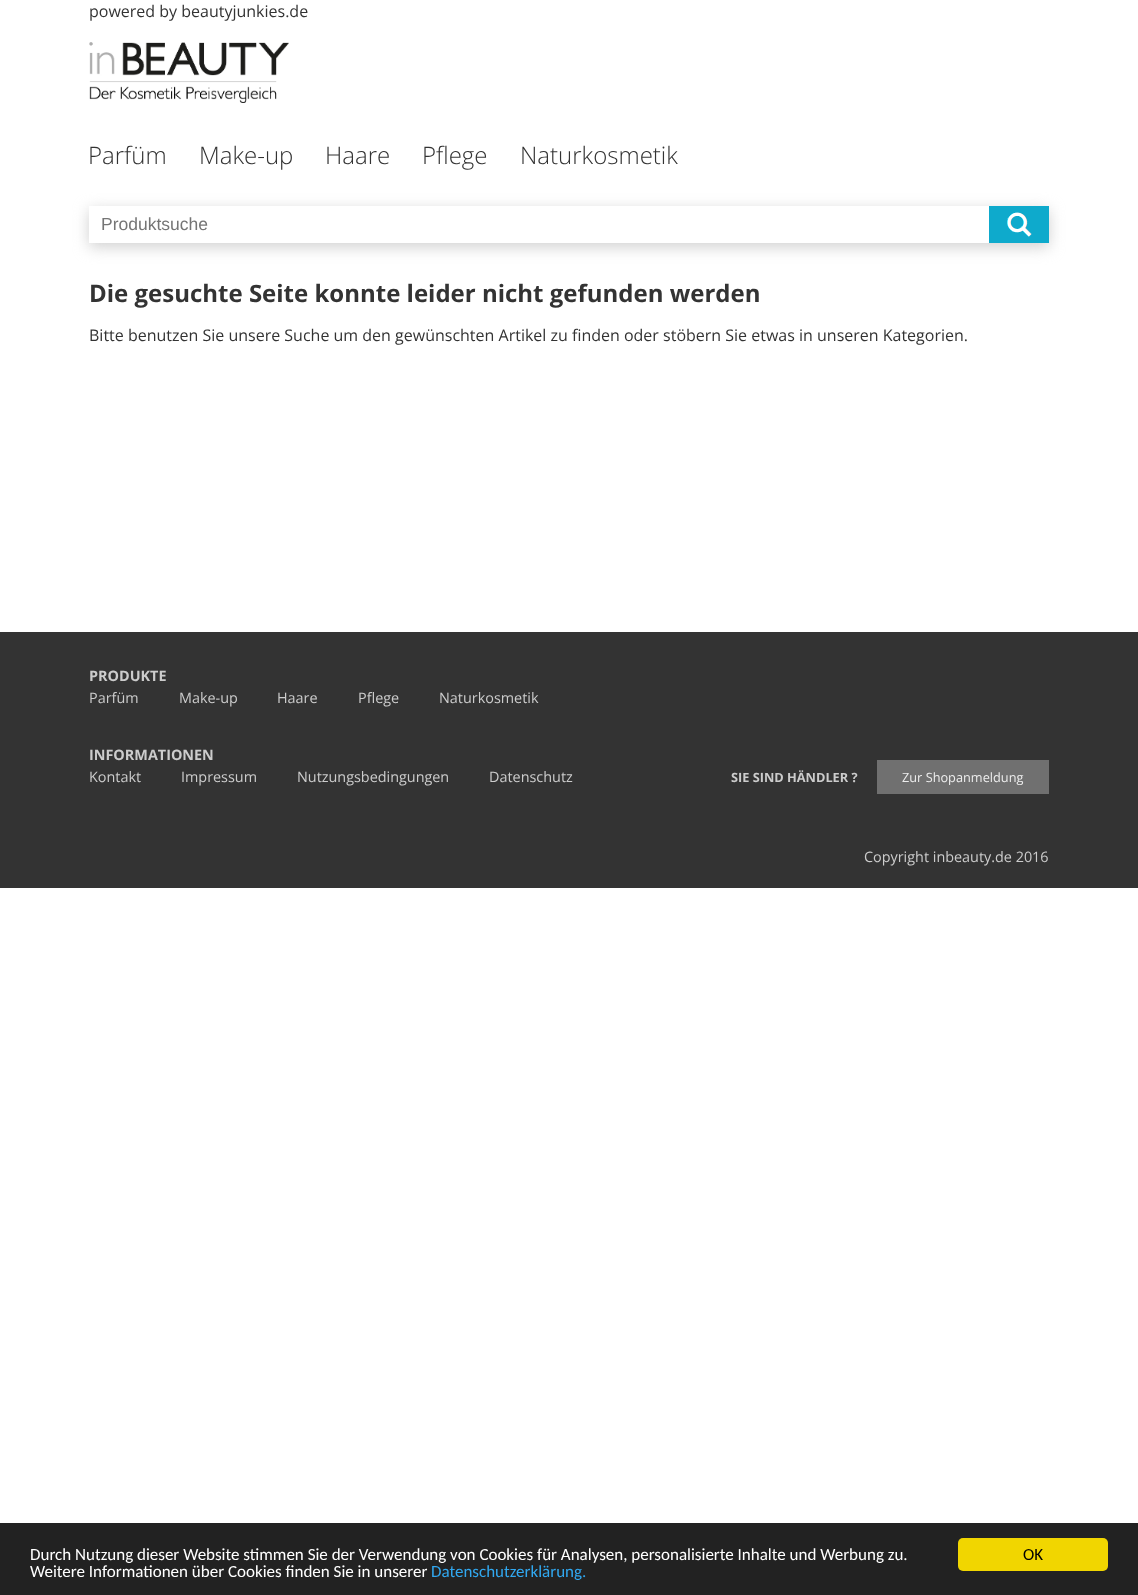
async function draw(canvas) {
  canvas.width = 1138
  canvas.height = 1595
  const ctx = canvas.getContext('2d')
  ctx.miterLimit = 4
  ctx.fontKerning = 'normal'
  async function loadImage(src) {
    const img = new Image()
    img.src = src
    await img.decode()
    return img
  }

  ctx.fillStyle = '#fff'
  ctx.fillRect(0, 0, 1138, 1595)
  ctx.font = '16px Open Sans'
  ctx.fillStyle = '#333'
  ctx.fillText('powered by beautyjunkies.de', 89, 17)
  ctx.drawImage(await loadImage('image0.png'), 89, 42, 200, 61)
  ctx.font = '300 24px Open Sans'
  ctx.fillText('Parfüm', 88, 164)
  ctx.fillText('Make-up', 199, 164)
  ctx.fillText('Haare', 325, 164)
  ctx.fillText('Pflege', 422, 164)
  ctx.fillText('Naturkosmetik', 520, 164)
  ctx.save()
  ctx.beginPath()
  ctx.moveTo(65, 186)
  ctx.lineTo(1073, 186)
  ctx.lineTo(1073, 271)
  ctx.lineTo(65, 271)
  ctx.closePath()
  ctx.moveTo(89, 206)
  ctx.lineTo(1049, 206)
  ctx.lineTo(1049, 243)
  ctx.lineTo(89, 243)
  ctx.closePath()
  ctx.clip('evenodd')
  ctx.fillStyle = '#d0d0d0'
  ctx.filter = 'blur(7.5px)'
  ctx.beginPath()
  ctx.rect(89, 210, 960, 37)
  ctx.fill()
  ctx.filter = 'none'
  ctx.restore()
  ctx.font = '17.5px Liberation Sans'
  ctx.fillStyle = '#757575'
  ctx.fillText('Produktsuche', 101, 230)
  ctx.fillStyle = '#0eaacc'
  ctx.fillRect(989, 206, 60, 37)
  ctx.drawImage(await loadImage('image1.png'), 1007, 212, 25, 25)
  ctx.font = 'bold 24px Open Sans'
  ctx.fillStyle = '#333'
  ctx.fillText('Die gesuchte Seite konnte leider nicht gefunden werden', 89, 302)
  ctx.font = '16px Open Sans'
  ctx.fillText('Bitte benutzen Sie unsere Suche um den gewünschten Artikel zu finden oder stöbern Sie etwas in unseren Kategorien.', 89, 341)
  ctx.fillRect(0, 632, 1138, 256)
  ctx.font = 'bold 14.4px Open Sans'
  ctx.fillStyle = '#ccc'
  ctx.fillText('PRODUKTE', 89, 681)
  ctx.font = '14.4px Open Sans'
  ctx.fillText('Parfüm', 89, 703)
  ctx.fillText('Make-up', 179, 703)
  ctx.fillText('Haare', 277, 703)
  ctx.fillText('Pflege', 358, 703)
  ctx.fillText('Naturkosmetik', 439, 703)
  ctx.font = 'bold 14.4px Open Sans'
  ctx.fillText('INFORMATIONEN', 89, 760)
  ctx.font = '14.4px Open Sans'
  ctx.fillText('Kontakt', 89, 782)
  ctx.fillText('Impressum', 181, 782)
  ctx.fillText('Nutzungsbedingungen', 297, 782)
  ctx.fillText('Datenschutz', 489, 782)
  ctx.font = 'bold 12.75px Open Sans'
  ctx.fillText('SIE SIND HÄNDLER ?', 731, 782)
  ctx.fillStyle = '#707070'
  ctx.fillRect(877, 760, 172, 34)
  ctx.font = '12.75px Open Sans'
  ctx.fillStyle = '#ededed'
  ctx.fillText('Zur Shopanmeldung', 902, 782)
  ctx.font = '14.4px Open Sans'
  ctx.fillStyle = '#ccc'
  ctx.fillText('Copyright inbeauty.de 2016', 864, 862)
  ctx.fillStyle = '#222'
  ctx.fillRect(0, 1523, 1138, 72)
  ctx.font = '17px Carlito'
  ctx.fillStyle = '#fff'
  ctx.fillText('Durch Nutzung dieser Website stimmen Sie der Verwendung von Cookies für Analysen, personalisierte Inhalte und Werbung zu.', 30, 1560)
  ctx.fillText('Weitere Informationen über Cookies finden Sie in unserer', 30, 1577)
  ctx.fillStyle = '#31a8f0'
  ctx.fillText('Datenschutzerklärung.', 431, 1577)
  ctx.fillStyle = '#f1d600'
  ctx.beginPath()
  ctx.roundRect(958, 1538, 150, 33, 5)
  ctx.fill()
  ctx.fillStyle = '#000'
  ctx.fillText('OK', 1023, 1560)
}

draw(document.querySelector('canvas'))
